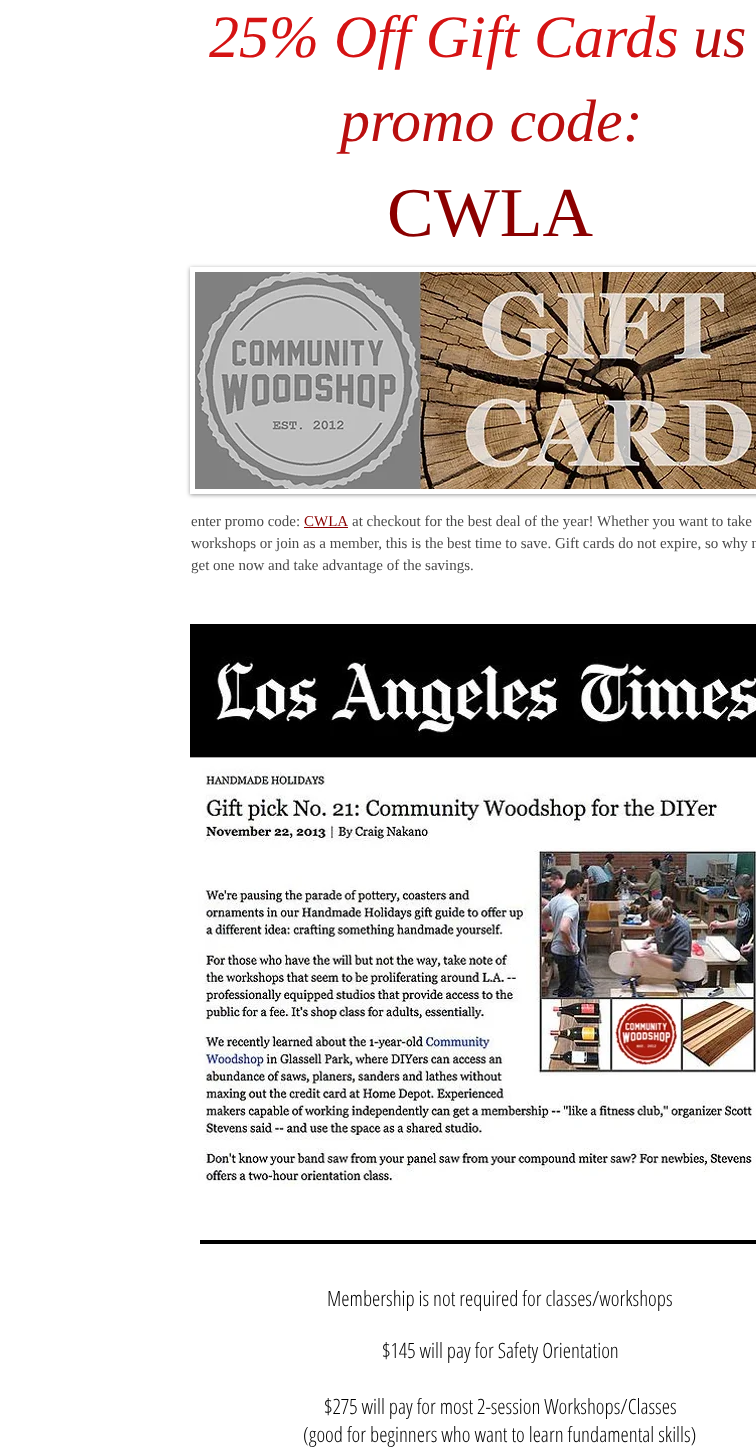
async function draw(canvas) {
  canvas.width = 756
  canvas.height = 1454
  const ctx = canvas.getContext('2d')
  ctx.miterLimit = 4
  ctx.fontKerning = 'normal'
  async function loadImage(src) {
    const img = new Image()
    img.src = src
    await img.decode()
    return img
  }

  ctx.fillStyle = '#fff'
  ctx.fillRect(0, 0, 756, 1454)
  ctx.font = 'italic 60px Liberation Serif'
  ctx.fillStyle = '#d51313'
  ctx.fillText('25% Off Gift Cards', 209, 57)
  ctx.fillStyle = '#ba0f0f'
  ctx.fillText('us', 693, 57)
  ctx.fillText('promo code:', 340, 141)
  ctx.font = '70px Liberation Serif'
  ctx.fillStyle = '#8b0000'
  ctx.fillText('CWLA', 387, 236)
  ctx.save()
  ctx.beginPath()
  ctx.moveTo(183, 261)
  ctx.lineTo(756, 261)
  ctx.lineTo(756, 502)
  ctx.lineTo(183, 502)
  ctx.closePath()
  ctx.moveTo(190, 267)
  ctx.lineTo(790, 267)
  ctx.lineTo(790, 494)
  ctx.lineTo(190, 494)
  ctx.closePath()
  ctx.clip('evenodd')
  ctx.fillStyle = '#00000066'
  ctx.filter = 'blur(2px)'
  ctx.beginPath()
  ctx.rect(190, 268, 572, 227)
  ctx.fill()
  ctx.filter = 'none'
  ctx.restore()
  ctx.drawImage(await loadImage('image0.png'), 195, 272, 561, 217)
  ctx.font = '15px Liberation Serif'
  ctx.fillStyle = '#4a4a4a'
  ctx.fillText('enter promo code:', 191, 526)
  ctx.fillStyle = '#8b0000'
  ctx.fillText('CWLA', 304, 526)
  ctx.fillRect(304, 527, 44, 1)
  ctx.fillStyle = '#4a4a4a'
  ctx.fillText('at checkout for the best deal of the year! Whether you want to take', 352, 526)
  ctx.fillText('workshops or join as a member, this is the best time to save. Gift cards do not expire, so why n', 191, 548)
  ctx.fillText('get one now and take advantage of the savings.', 191, 570)
  ctx.drawImage(await loadImage('image1.png'), 190, 624, 566, 563)
  ctx.fillStyle = '#000'
  ctx.fillRect(200, 1240, 556, 4)
  ctx.font = '300 21px Open Sans Condensed'
  ctx.fillText('Membership is not required for classes/workshops', 327, 1306)
  ctx.fillText('$145 will pay for Safety Orientation', 382, 1358)
  ctx.fillText('$275 will pay for most 2-session Workshops/Classes', 324, 1414)
  ctx.fillText('(good for beginners who want to learn fundamental skills)', 303, 1442)
}

draw(document.querySelector('canvas'))
